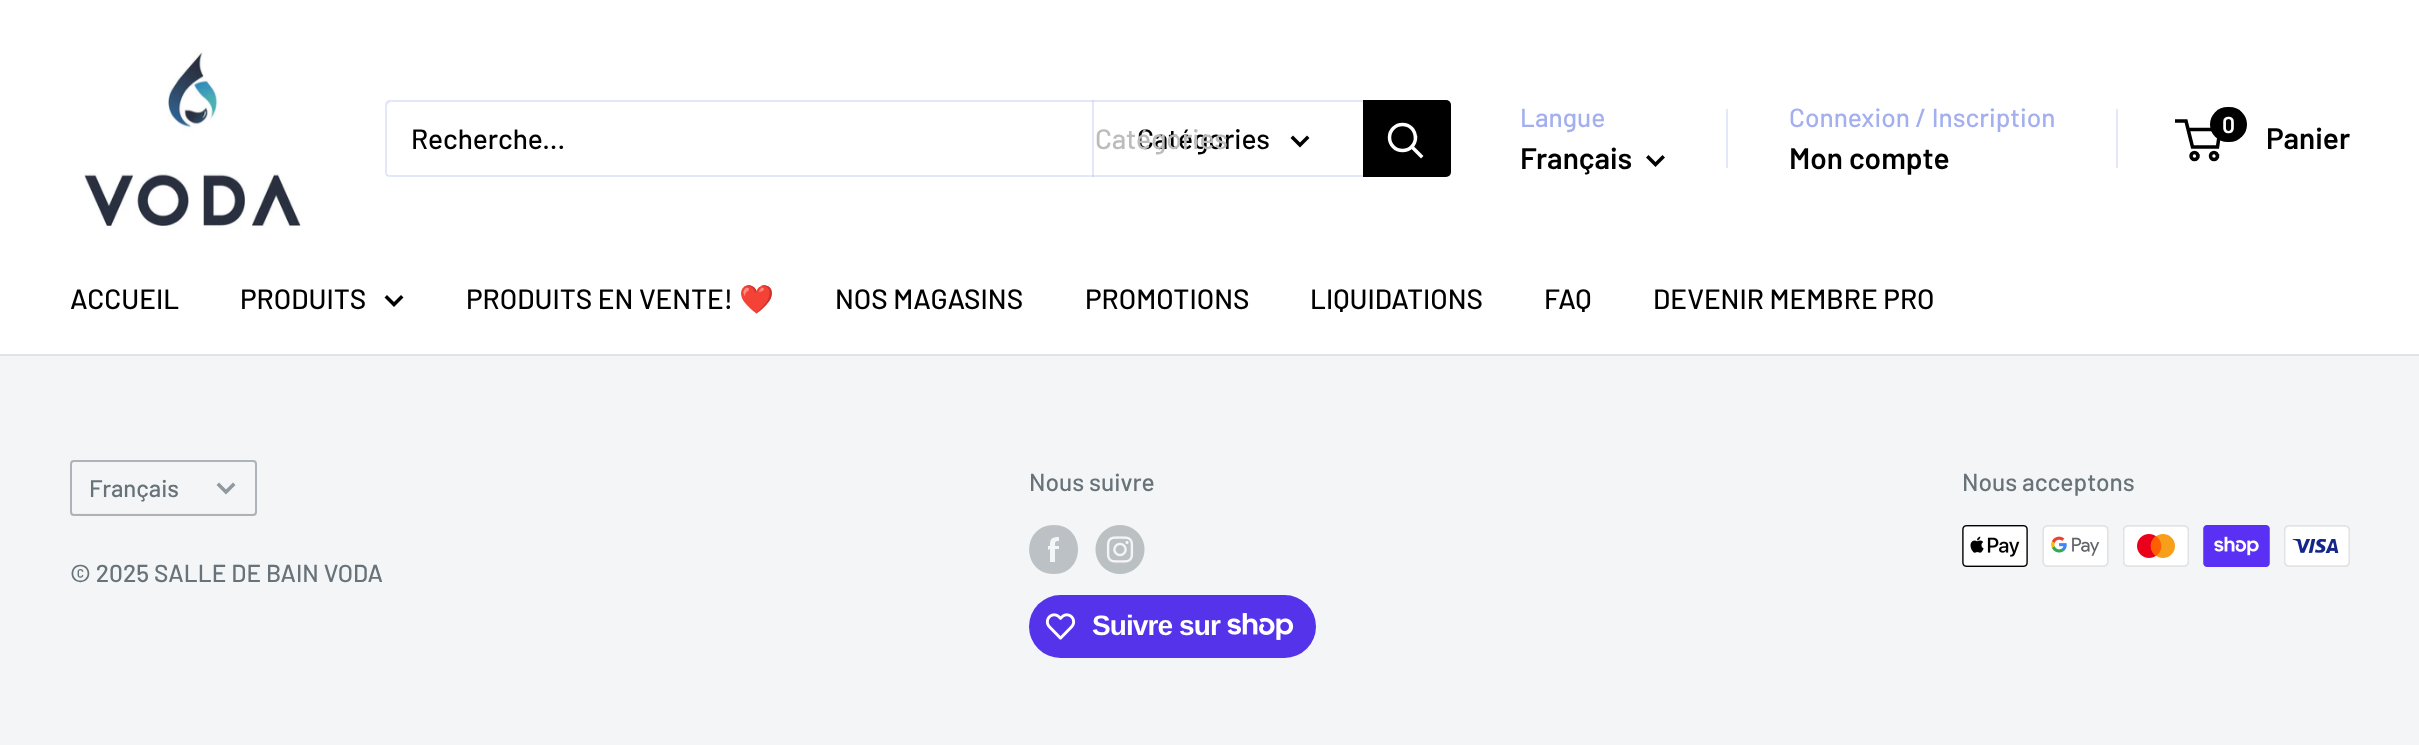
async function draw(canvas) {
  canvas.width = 2419
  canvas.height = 745
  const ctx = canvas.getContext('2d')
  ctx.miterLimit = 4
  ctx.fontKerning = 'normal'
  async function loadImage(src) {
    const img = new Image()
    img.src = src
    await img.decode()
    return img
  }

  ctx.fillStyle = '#f3f5f6'
  ctx.fillRect(0, 0, 2419, 745)
  ctx.fillStyle = '#fff'
  ctx.fillRect(0, 0, 2419, 354)
  ctx.drawImage(await loadImage('image0.png'), 70, 52, 245, 191)
  ctx.fillStyle = '#e3e7fa'
  ctx.beginPath()
  ctx.moveTo(386, 174)
  ctx.bezierCurveTo(386, 176, 388, 177, 390, 177)
  ctx.lineTo(1446, 177)
  ctx.bezierCurveTo(1449, 177, 1451, 175, 1451, 172)
  ctx.lineTo(1451, 105)
  ctx.bezierCurveTo(1451, 103, 1450, 102, 1449, 101)
  ctx.lineTo(1449, 103)
  ctx.lineTo(1449, 170)
  ctx.bezierCurveTo(1449, 173, 1447, 175, 1444, 175)
  ctx.lineTo(388, 175)
  ctx.closePath()
  ctx.fill()
  ctx.fillStyle = '#a3afef4d'
  ctx.beginPath()
  ctx.moveTo(392, 102)
  ctx.lineTo(1447, 102)
  ctx.bezierCurveTo(1449, 102, 1450, 103, 1451, 104)
  ctx.bezierCurveTo(1450, 101, 1448, 100, 1446, 100)
  ctx.lineTo(390, 100)
  ctx.bezierCurveTo(387, 100, 385, 102, 385, 105)
  ctx.lineTo(385, 172)
  ctx.bezierCurveTo(385, 174, 386, 176, 389, 177)
  ctx.bezierCurveTo(388, 176, 387, 175, 387, 173)
  ctx.lineTo(387, 107)
  ctx.bezierCurveTo(387, 104, 389, 102, 392, 102)
  ctx.closePath()
  ctx.fill()
  ctx.font = '500 28px Barlow'
  ctx.fillStyle = '#000'
  ctx.fillText('Recherche...', 411, 149)
  ctx.fillStyle = '#a3afef4d'
  ctx.fillRect(1092, 100, 2, 77)
  ctx.fillStyle = '#000'
  ctx.fillText('Catégories', 1137, 149)
  ctx.fillStyle = '#bcbcbc'
  ctx.fillText('Catégories', 1095, 149)
  ctx.beginPath()
  ctx.moveTo(1307, 138)
  ctx.lineTo(1300, 145)
  ctx.lineTo(1293, 138)
  ctx.strokeStyle = '#000'
  ctx.lineWidth = 3.5
  ctx.lineCap = 'square'
  ctx.stroke()
  ctx.fillStyle = '#000'
  ctx.beginPath()
  ctx.roundRect(1363, 100, 88, 77, [0, 5, 5, 0])
  ctx.fill()
  ctx.beginPath()
  ctx.moveTo(1421, 156)
  ctx.lineTo(1412, 147)
  ctx.strokeStyle = '#fff'
  ctx.stroke()
  ctx.beginPath()
  ctx.arc(1402.5, 137.5, 13, 0, 2 * Math.PI)
  ctx.stroke()
  ctx.font = '500 26.25px Barlow'
  ctx.fillStyle = '#a3afef'
  ctx.fillText('Langue', 1520, 127)
  ctx.font = '600 29.75px Barlow'
  ctx.fillStyle = '#000'
  ctx.fillText('Français', 1520, 169)
  ctx.beginPath()
  ctx.moveTo(1662.5, 157.5)
  ctx.lineTo(1655.5, 164.5)
  ctx.lineTo(1648.5, 157.5)
  ctx.strokeStyle = '#000'
  ctx.stroke()
  ctx.fillStyle = '#e3e7fa'
  ctx.fillRect(1726, 109, 2, 59)
  ctx.font = '500 26.25px Barlow'
  ctx.fillStyle = '#a3afef'
  ctx.fillText('Connexion / Inscription', 1789, 127)
  ctx.fillStyle = '#e3e7fa'
  ctx.fillRect(2116, 109, 2, 59)
  ctx.font = '600 29.75px Barlow'
  ctx.fillStyle = '#000'
  ctx.fillText('Mon compte', 1789, 169)
  ctx.beginPath()
  ctx.arc(2194.5, 156, 3.5, 0, 2 * Math.PI)
  ctx.stroke()
  ctx.beginPath()
  ctx.arc(2214, 156, 3.5, 0, 2 * Math.PI)
  ctx.stroke()
  ctx.beginPath()
  ctx.moveTo(2188, 129.5)
  ctx.lineTo(2220, 129.5)
  ctx.lineTo(2217.5, 147)
  ctx.lineTo(2192.5, 147)
  ctx.lineTo(2186, 121)
  ctx.lineTo(2175, 121)
  ctx.lineCap = 'butt'
  ctx.stroke()
  ctx.beginPath()
  ctx.roundRect(2210, 107, 37, 35, 17.5)
  ctx.fill()
  ctx.font = '600 23px Barlow'
  ctx.fillStyle = '#fff'
  ctx.fillText('0', 2222, 133)
  ctx.font = '600 29.75px Barlow'
  ctx.fillStyle = '#000'
  ctx.fillText('Panier', 2266, 149)
  ctx.fillStyle = '#e1e3e4'
  ctx.fillRect(0, 354, 2419, 2)
  ctx.font = '500 28px Barlow'
  ctx.fillStyle = '#000'
  ctx.fillText('ACCUEIL', 70, 309)
  ctx.fillText('PRODUITS', 240, 309)
  ctx.beginPath()
  ctx.moveTo(401, 297.5)
  ctx.lineTo(394, 304.5)
  ctx.lineTo(387, 297.5)
  ctx.lineCap = 'square'
  ctx.stroke()
  ctx.fillText('PRODUITS EN VENTE!', 466, 309)
  ctx.font = '28px Noto Color Emoji'
  ctx.fillText('❤️', 739, 309)
  ctx.font = '500 28px Barlow'
  ctx.fillText('NOS MAGASINS', 835, 309)
  ctx.fillText('PROMOTIONS', 1085, 309)
  ctx.fillText('LIQUIDATIONS', 1310, 309)
  ctx.fillText('FAQ', 1544, 309)
  ctx.fillText('DEVENIR MEMBRE PRO', 1653, 309)
  ctx.fillStyle = '#eef0f1'
  ctx.beginPath()
  ctx.moveTo(72, 511)
  ctx.bezierCurveTo(72, 512, 72, 515, 74, 515)
  ctx.lineTo(254, 515)
  ctx.bezierCurveTo(256, 515, 256, 513, 256, 511)
  ctx.bezierCurveTo(256, 512, 255, 513, 254, 513)
  ctx.lineTo(74, 513)
  ctx.bezierCurveTo(73, 513, 72, 512, 72, 511)
  ctx.closePath()
  ctx.fill()
  ctx.beginPath()
  ctx.roundRect(71, 461, 185, 54, 3)
  ctx.strokeStyle = '#67727980'
  ctx.lineWidth = 2
  ctx.stroke()
  ctx.font = '500 24px Barlow'
  ctx.fillStyle = '#677279'
  ctx.fillText('Français', 89, 497)
  ctx.beginPath()
  ctx.moveTo(233, 485)
  ctx.lineTo(226, 492)
  ctx.lineTo(219, 485)
  ctx.strokeStyle = '#91999f'
  ctx.lineWidth = 3.5
  ctx.stroke()
  ctx.font = '500 24.5px Barlow'
  ctx.fillText('© 2025 SALLE DE BAIN VODA', 70, 582)
  ctx.fillText('Nous suivre', 1029, 491)
  ctx.fillStyle = '#bbc1c4'
  ctx.beginPath()
  ctx.moveTo(1054, 574)
  ctx.bezierCurveTo(1021, 574, 1021, 525, 1054, 525)
  ctx.bezierCurveTo(1086, 525, 1086, 574, 1054, 574)
  ctx.closePath()
  ctx.moveTo(1059, 546)
  ctx.lineTo(1055, 546)
  ctx.bezierCurveTo(1055, 542, 1055, 541, 1059, 541)
  ctx.lineTo(1059, 537)
  ctx.bezierCurveTo(1051, 537, 1050, 539, 1050, 546)
  ctx.lineTo(1048, 546)
  ctx.lineTo(1048, 550)
  ctx.lineTo(1050, 549)
  ctx.lineTo(1050, 562)
  ctx.lineTo(1055, 562)
  ctx.lineTo(1055, 549)
  ctx.lineTo(1059, 549)
  ctx.closePath()
  ctx.fill('evenodd')
  ctx.drawImage(await loadImage('image1.png'), 1095, 525, 50, 49)
  ctx.fillStyle = '#5433eb'
  ctx.beginPath()
  ctx.roundRect(1029, 595, 287, 63, 31.5)
  ctx.fill()
  ctx.drawImage(await loadImage('image2.png'), 1045, 613, 31, 27)
  ctx.letterSpacing = '-0.9px'
  ctx.font = 'bold 28px Liberation Sans'
  ctx.fillStyle = '#fff'
  ctx.fillText('Suivre sur', 1092, 635)
  ctx.drawImage(await loadImage('image3.png'), 1227, 613, 67, 27)
  ctx.letterSpacing = '0px'
  ctx.font = '500 24.5px Barlow'
  ctx.fillStyle = '#677279'
  ctx.fillText('Nous acceptons', 1962, 491)
  ctx.drawImage(await loadImage('image4.png'), 1962, 525, 66, 42)
  ctx.drawImage(await loadImage('image5.png'), 2042, 525, 67, 42)
  ctx.drawImage(await loadImage('image6.png'), 2123, 525, 66, 42)
  ctx.drawImage(await loadImage('image7.png'), 2203, 525, 67, 42)
  ctx.drawImage(await loadImage('image8.png'), 2284, 525, 66, 42)
}

draw(document.querySelector('canvas'))
